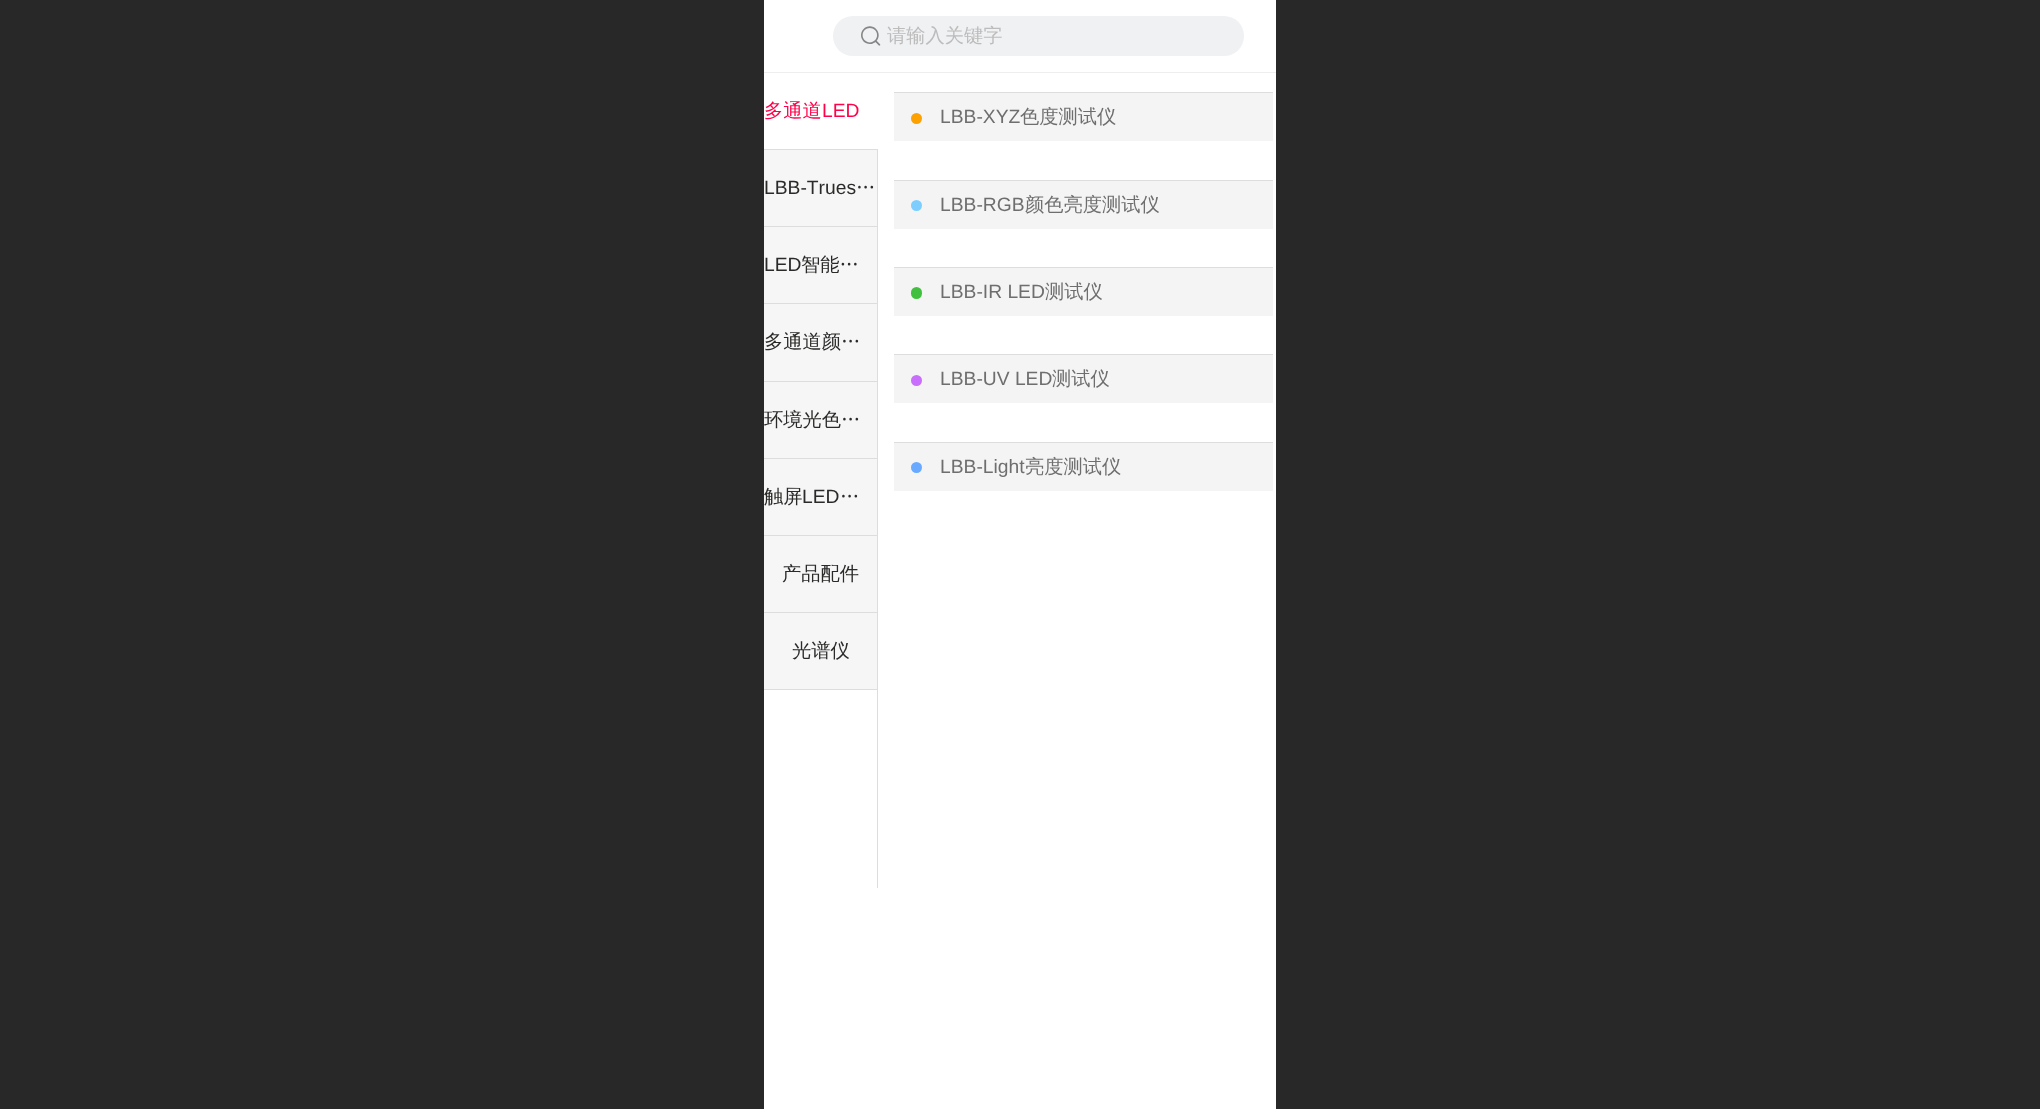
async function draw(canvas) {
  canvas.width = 2040
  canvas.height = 1109
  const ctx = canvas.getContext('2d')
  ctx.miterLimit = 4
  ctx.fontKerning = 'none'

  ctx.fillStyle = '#fff'
  ctx.fillRect(0, 0, 2040, 1109)
  ctx.fillStyle = '#282828'
  ctx.fillRect(0, 0, 764, 1109)
  ctx.fillStyle = '#eee'
  ctx.fillRect(764, 72, 512, 1)
  ctx.fillStyle = '#f0f1f3'
  ctx.beginPath()
  ctx.roundRect(833, 16, 411, 40, 20)
  ctx.fill()
  ctx.font = '19.25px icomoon'
  ctx.fillStyle = '#868686'
  ctx.fillText('򰊐', 861, 44)
  ctx.font = '500 19.25px WenQuanYi Zen Hei'
  ctx.fillStyle = '#bcbcbc'
  ctx.fillText('请输入关键字', 887, 42)
  ctx.fillStyle = '#ddd'
  ctx.fillRect(877, 150, 1, 738)
  ctx.fillRect(764, 149, 114, 1)
  ctx.fillStyle = '#ff034a'
  ctx.fillText('多通道', 764, 117)
  ctx.font = '19.25px Liberation Sans'
  ctx.fillText('LED', 822, 117)
  ctx.fillStyle = '#f6f6f6'
  ctx.fillRect(764, 150, 113, 76)
  ctx.fillStyle = '#ddd'
  ctx.fillRect(764, 226, 113, 1)
  ctx.fillStyle = '#2a2a29'
  ctx.fillText('LBB-Trues', 764, 194)
  ctx.font = '500 19.25px WenQuanYi Zen Hei'
  ctx.fillText('…', 856, 194)
  ctx.fillStyle = '#f6f6f6'
  ctx.fillRect(764, 227, 113, 76)
  ctx.fillStyle = '#ddd'
  ctx.fillRect(764, 303, 113, 1)
  ctx.font = '19.25px Liberation Sans'
  ctx.fillStyle = '#2a2a29'
  ctx.fillText('LED', 764, 271)
  ctx.font = '500 19.25px WenQuanYi Zen Hei'
  ctx.fillText('智能…', 801, 271)
  ctx.fillStyle = '#f6f6f6'
  ctx.fillRect(764, 304, 113, 77)
  ctx.fillStyle = '#ddd'
  ctx.fillRect(764, 381, 113, 1)
  ctx.fillStyle = '#2a2a29'
  ctx.fillText('多通道颜…', 764, 348)
  ctx.fillStyle = '#f6f6f6'
  ctx.fillRect(764, 382, 113, 76)
  ctx.fillStyle = '#ddd'
  ctx.fillRect(764, 458, 113, 1)
  ctx.fillStyle = '#2a2a29'
  ctx.fillText('环境光色…', 764, 426)
  ctx.fillStyle = '#f6f6f6'
  ctx.fillRect(764, 459, 113, 76)
  ctx.fillStyle = '#ddd'
  ctx.fillRect(764, 535, 113, 1)
  ctx.fillStyle = '#2a2a29'
  ctx.fillText('触屏', 764, 503)
  ctx.font = '19.25px Liberation Sans'
  ctx.fillText('LED', 802, 503)
  ctx.font = '500 19.25px WenQuanYi Zen Hei'
  ctx.fillText('…', 840, 503)
  ctx.fillStyle = '#f6f6f6'
  ctx.fillRect(764, 536, 113, 76)
  ctx.fillStyle = '#ddd'
  ctx.fillRect(764, 612, 113, 1)
  ctx.fillStyle = '#2a2a29'
  ctx.fillText('产品配件', 782, 580)
  ctx.fillStyle = '#f6f6f6'
  ctx.fillRect(764, 613, 113, 76)
  ctx.fillStyle = '#ddd'
  ctx.fillRect(764, 689, 113, 1)
  ctx.fillStyle = '#2a2a29'
  ctx.fillText('光谱仪', 792, 657)
  ctx.fillStyle = '#f4f4f4'
  ctx.fillRect(894, 93, 379, 48)
  ctx.fillStyle = '#ddd'
  ctx.fillRect(894, 92, 379, 1)
  ctx.fillStyle = '#fda100'
  ctx.beginPath()
  ctx.arc(916.5, 118.5, 5.5, 0, 2 * Math.PI)
  ctx.fill()
  ctx.font = '19.25px Liberation Sans'
  ctx.fillStyle = '#6e6e6e'
  ctx.fillText('LBB-XYZ', 940, 123)
  ctx.font = '500 19.25px WenQuanYi Zen Hei'
  ctx.fillText('色度测试仪', 1020, 123)
  ctx.fillStyle = '#f4f4f4'
  ctx.fillRect(894, 181, 379, 48)
  ctx.fillStyle = '#ddd'
  ctx.fillRect(894, 180, 379, 1)
  ctx.fillStyle = '#7dcdfe'
  ctx.beginPath()
  ctx.arc(916.5, 205.5, 5.5, 0, 2 * Math.PI)
  ctx.fill()
  ctx.font = '19.25px Liberation Sans'
  ctx.fillStyle = '#6e6e6e'
  ctx.fillText('LBB-RGB', 940, 211)
  ctx.font = '500 19.25px WenQuanYi Zen Hei'
  ctx.fillText('颜色亮度测试仪', 1025, 211)
  ctx.fillStyle = '#f4f4f4'
  ctx.fillRect(894, 268, 379, 48)
  ctx.fillStyle = '#ddd'
  ctx.fillRect(894, 267, 379, 1)
  ctx.fillStyle = '#41c03f'
  ctx.beginPath()
  ctx.roundRect(911, 287, 11, 12, 5.5)
  ctx.fill()
  ctx.font = '19.25px Liberation Sans'
  ctx.fillStyle = '#6e6e6e'
  ctx.fillText('LBB-IR LED', 940, 298)
  ctx.font = '500 19.25px WenQuanYi Zen Hei'
  ctx.fillText('测试仪', 1045, 298)
  ctx.fillStyle = '#f4f4f4'
  ctx.fillRect(894, 355, 379, 48)
  ctx.fillStyle = '#ddd'
  ctx.fillRect(894, 354, 379, 1)
  ctx.fillStyle = '#c96dfc'
  ctx.beginPath()
  ctx.arc(916.5, 380.5, 5.5, 0, 2 * Math.PI)
  ctx.fill()
  ctx.font = '19.25px Liberation Sans'
  ctx.fillStyle = '#6e6e6e'
  ctx.fillText('LBB-UV LED', 940, 385)
  ctx.font = '500 19.25px WenQuanYi Zen Hei'
  ctx.fillText('测试仪', 1052, 385)
  ctx.fillStyle = '#f4f4f4'
  ctx.fillRect(894, 443, 379, 48)
  ctx.fillStyle = '#ddd'
  ctx.fillRect(894, 442, 379, 1)
  ctx.fillStyle = '#69a9ff'
  ctx.beginPath()
  ctx.arc(916.5, 467.5, 5.5, 0, 2 * Math.PI)
  ctx.fill()
  ctx.font = '19.25px Liberation Sans'
  ctx.fillStyle = '#6e6e6e'
  ctx.fillText('LBB-Light', 940, 473)
  ctx.font = '500 19.25px WenQuanYi Zen Hei'
  ctx.fillText('亮度测试仪', 1025, 473)
  ctx.fillStyle = '#282828'
  ctx.fillRect(1276, 0, 764, 1109)
}

draw(document.querySelector('canvas'))
